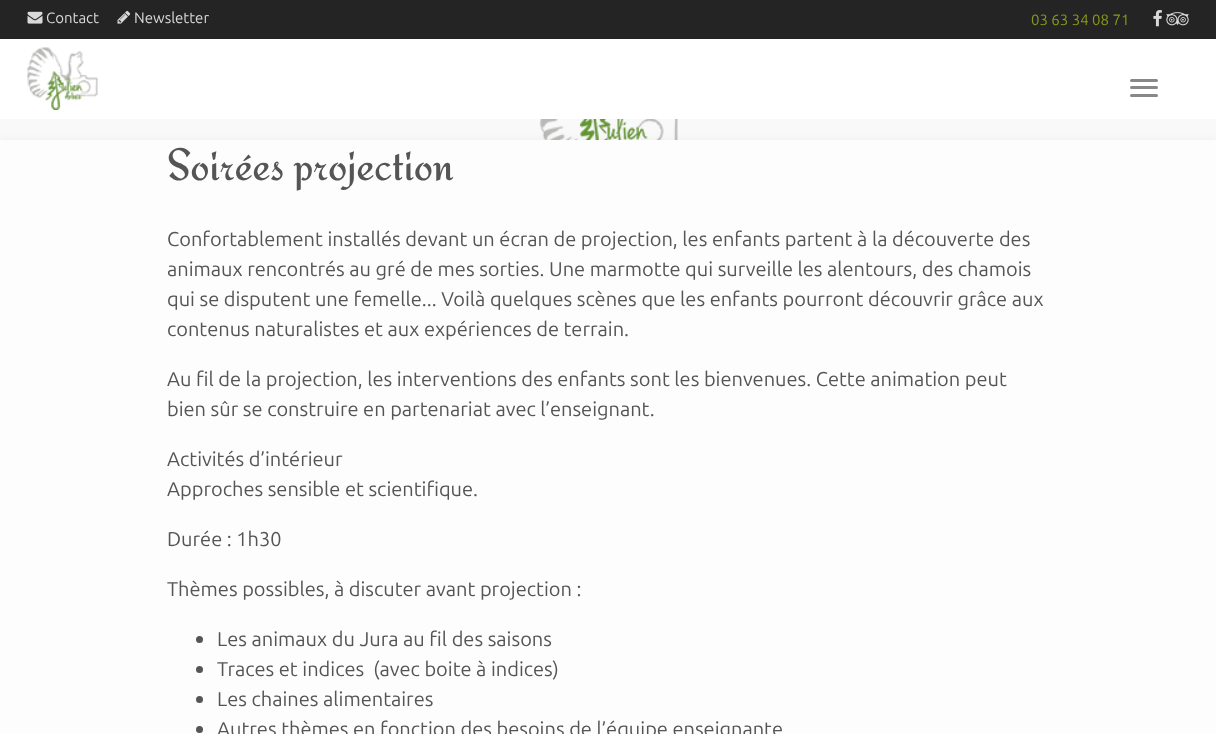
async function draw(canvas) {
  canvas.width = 1216
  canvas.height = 734
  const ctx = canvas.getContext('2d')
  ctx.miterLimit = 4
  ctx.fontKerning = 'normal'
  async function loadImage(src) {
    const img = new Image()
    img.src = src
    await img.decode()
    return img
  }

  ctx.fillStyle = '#f9f9f9'
  ctx.fillRect(0, 0, 1216, 734)
  ctx.fillStyle = '#fff'
  ctx.fillRect(0, 39, 1216, 80)
  ctx.fillStyle = '#242424'
  ctx.fillRect(0, 0, 1216, 39)
  ctx.drawImage(await loadImage('image0.png'), 27, 11, 16, 13)
  ctx.font = '15px Ubuntu'
  ctx.fillStyle = '#d9d9d9'
  ctx.fillText('Contact', 46, 23)
  ctx.drawImage(await loadImage('image1.png'), 117, 10, 14, 14)
  ctx.fillText('Newsletter', 134, 23)
  ctx.fillStyle = '#8a991c'
  ctx.fillText('03 63 34 08 71', 1031, 25)
  ctx.drawImage(await loadImage('image2.png'), 1153, 10, 9, 17)
  ctx.drawImage(await loadImage('image3.png'), 1166, 12, 23, 14)
  ctx.drawImage(await loadImage('image4.png'), 27, 47, 71, 63)
  ctx.fillStyle = '#888'
  ctx.beginPath()
  ctx.roundRect(1130, 79, 28, 3, 1.5)
  ctx.fill()
  ctx.beginPath()
  ctx.roundRect(1130, 86, 28, 3, 1.5)
  ctx.fill()
  ctx.beginPath()
  ctx.roundRect(1130, 94, 28, 3, 1.5)
  ctx.fill()
  ctx.drawImage(await loadImage('image5.png'), 539, 119, 139, 21)
  ctx.fillStyle = '#00000014'
  ctx.filter = 'blur(6px)'
  ctx.beginPath()
  ctx.rect(0, 143, 1216, 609)
  ctx.fill()
  ctx.filter = 'none'
  ctx.fillStyle = '#fdfdfd'
  ctx.fillRect(0, 140, 1216, 594)
  ctx.font = '45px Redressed'
  ctx.fillStyle = '#555'
  ctx.fillText('Soirées projection', 167, 180)
  ctx.font = '20px Ubuntu'
  ctx.fillText('Confortablement installés devant un écran de projection, les enfants partent à la découverte des', 167, 246)
  ctx.fillText('animaux rencontrés au gré de mes sorties. Une marmotte qui surveille les alentours, des chamois', 167, 276)
  ctx.fillText('qui se disputent une femelle... Voilà quelques scènes que les enfants pourront découvrir grâce aux', 167, 306)
  ctx.fillText('contenus naturalistes et aux expériences de terrain.', 167, 336)
  ctx.fillText('Au fil de la projection, les interventions des enfants sont les bienvenues. Cette animation peut', 167, 386)
  ctx.fillText('bien sûr se construire en partenariat avec l’enseignant.', 167, 416)
  ctx.fillText('Activités d’intérieur', 167, 466)
  ctx.fillText('Approches sensible et scientifique.', 167, 496)
  ctx.fillText('Durée : 1h30', 167, 546)
  ctx.fillText('Thèmes possibles, à discuter avant projection :', 167, 596)
  ctx.beginPath()
  ctx.arc(199.5, 639.5, 3.5, 0, 2 * Math.PI)
  ctx.fill()
  ctx.fillText('Les animaux du Jura au fil des saisons', 217, 646)
  ctx.beginPath()
  ctx.arc(199.5, 669.5, 3.5, 0, 2 * Math.PI)
  ctx.fill()
  ctx.fillText('Traces et indices  (avec boite à indices)', 217, 676)
  ctx.beginPath()
  ctx.arc(199.5, 699.5, 3.5, 0, 2 * Math.PI)
  ctx.fill()
  ctx.fillText('Les chaines alimentaires', 217, 706)
  ctx.beginPath()
  ctx.arc(199.5, 729.5, 3.5, 0, 2 * Math.PI)
  ctx.fill()
  ctx.fillText('Autres thèmes en fonction des besoins de l’équipe enseignante', 217, 736)
}

draw(document.querySelector('canvas'))
